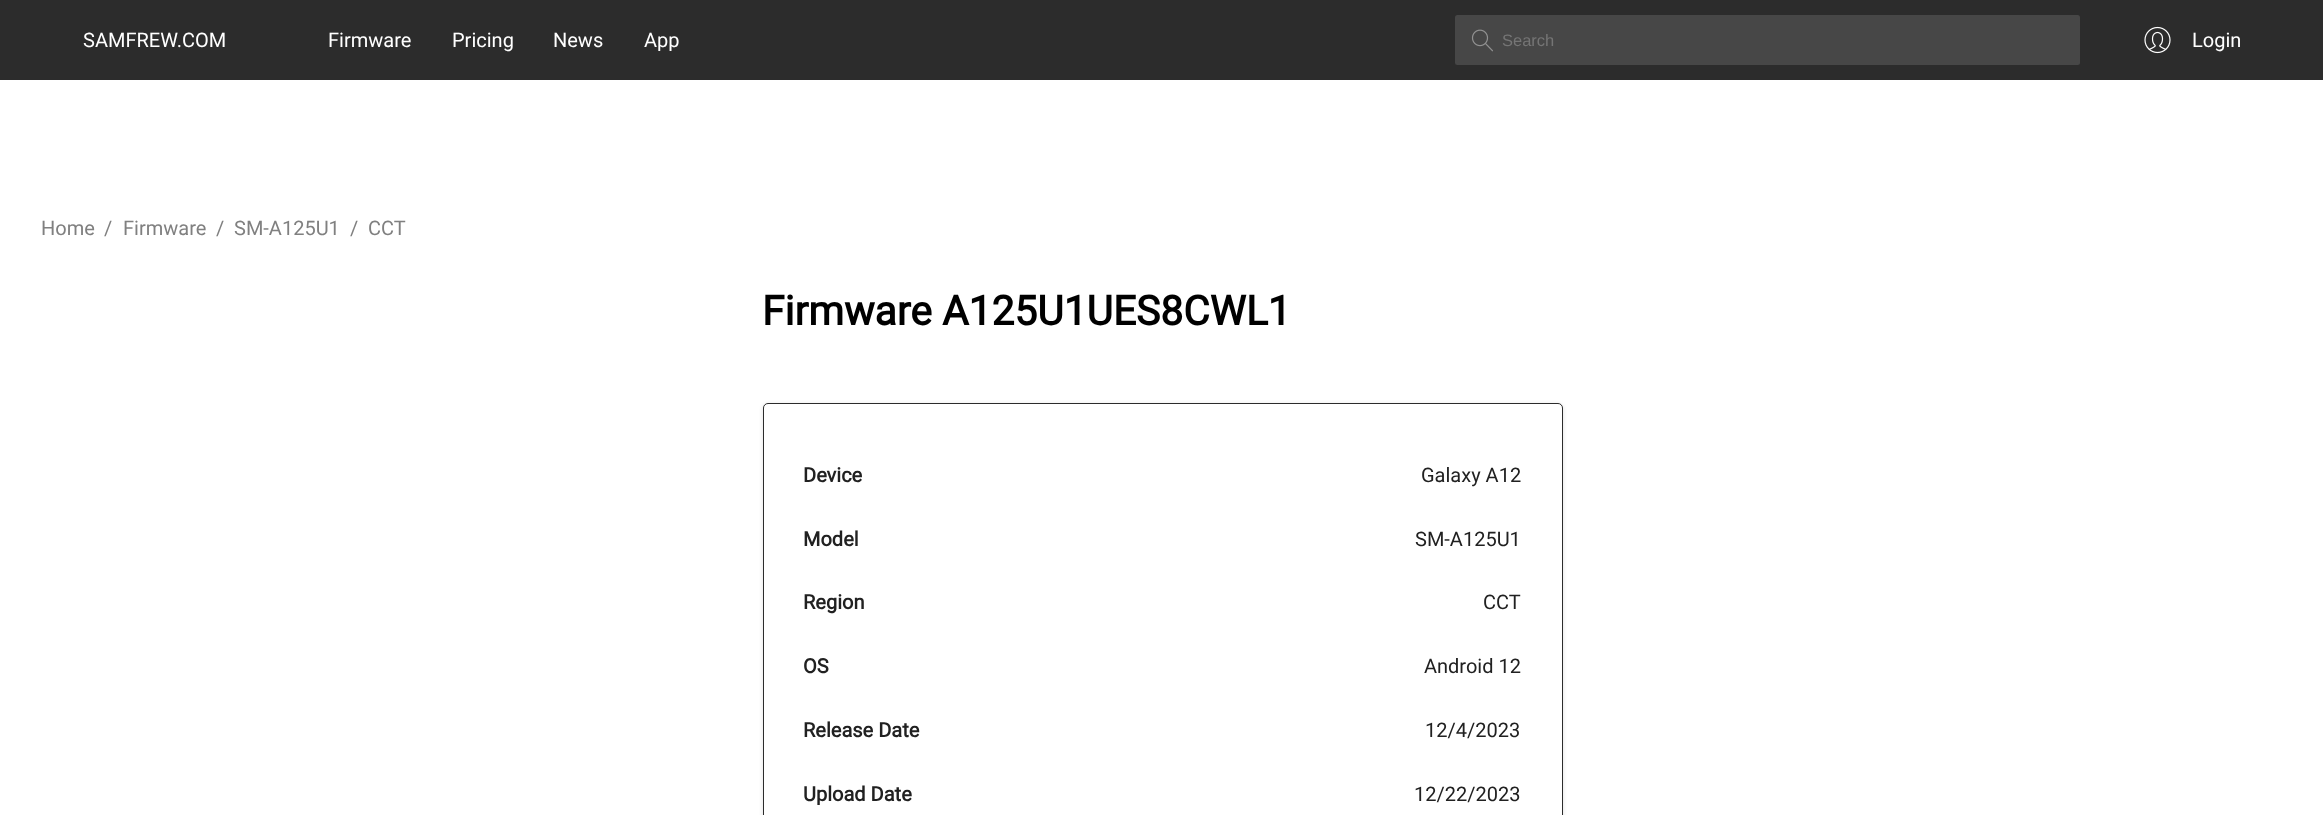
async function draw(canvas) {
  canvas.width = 2323
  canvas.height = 815
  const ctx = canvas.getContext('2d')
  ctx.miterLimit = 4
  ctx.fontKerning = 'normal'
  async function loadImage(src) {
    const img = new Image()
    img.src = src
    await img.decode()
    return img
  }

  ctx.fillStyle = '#fff'
  ctx.fillRect(0, 0, 2323, 815)
  ctx.fillStyle = '#2c2c2c'
  ctx.fillRect(0, 0, 2323, 80)
  ctx.font = '20px Roboto'
  ctx.fillStyle = '#fff'
  ctx.fillText('SAMFREW.COM', 83, 47)
  ctx.fillText('Firmware', 328, 47)
  ctx.fillText('Pricing', 452, 47)
  ctx.fillText('News', 553, 47)
  ctx.fillText('App', 644, 47)
  ctx.fillStyle = '#474747'
  ctx.beginPath()
  ctx.roundRect(1455, 15, 625, 50, 2.5)
  ctx.fill()
  ctx.drawImage(await loadImage('image0.png'), 1471, 29, 22, 23)
  ctx.font = '16.5px Liberation Sans'
  ctx.fillStyle = '#757575'
  ctx.fillText('Search', 1502, 46)
  ctx.drawImage(await loadImage('image1.png'), 2144, 26, 27, 28)
  ctx.font = '20px Roboto'
  ctx.fillStyle = '#fff'
  ctx.fillText('Login', 2192, 47)
  ctx.fillStyle = '#808080'
  ctx.fillText('Home', 41, 235)
  ctx.fillText('/', 104, 235)
  ctx.fillText('Firmware', 123, 235)
  ctx.fillText('/', 216, 235)
  ctx.fillText('SM-A125U1', 234, 235)
  ctx.fillText('/', 350, 235)
  ctx.fillText('CCT', 368, 235)
  ctx.font = 'bold 40.75px Roboto'
  ctx.fillStyle = '#000'
  ctx.fillText('Firmware A125U1UES8CWL1', 762, 325)
  ctx.fillStyle = '#0000001f'
  ctx.filter = 'blur(2px)'
  ctx.beginPath()
  ctx.roundRect(763, 404, 800, 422, 5)
  ctx.fill()
  ctx.filter = 'none'
  ctx.fillStyle = '#00000024'
  ctx.filter = 'blur(0.5px)'
  ctx.beginPath()
  ctx.roundRect(763, 404, 800, 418, 5)
  ctx.fill()
  ctx.filter = 'none'
  ctx.fillStyle = '#fff'
  ctx.beginPath()
  ctx.roundRect(763.5, 403.5, 799, 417, 4.5)
  ctx.fill()
  ctx.strokeStyle = '#2c2c2c'
  ctx.stroke()
  ctx.font = 'bold 20px Roboto'
  ctx.fillStyle = '#212121'
  ctx.fillText('Device', 803, 482)
  ctx.font = '20px Roboto'
  ctx.fillText('Galaxy A12', 1421, 482)
  ctx.font = 'bold 20px Roboto'
  ctx.fillText('Model', 803, 546)
  ctx.font = '20px Roboto'
  ctx.fillText('SM-A125U1', 1415, 546)
  ctx.font = 'bold 20px Roboto'
  ctx.fillText('Region', 803, 609)
  ctx.font = '20px Roboto'
  ctx.fillText('CCT', 1483, 609)
  ctx.font = 'bold 20px Roboto'
  ctx.fillText('OS', 803, 673)
  ctx.font = '20px Roboto'
  ctx.fillText('Android 12', 1424, 673)
  ctx.font = 'bold 20px Roboto'
  ctx.fillText('Release Date', 803, 737)
  ctx.font = '20px Roboto'
  ctx.fillText('12/4/2023', 1425, 737)
  ctx.font = 'bold 20px Roboto'
  ctx.fillText('Upload Date', 803, 801)
  ctx.font = '20px Roboto'
  ctx.fillText('12/22/2023', 1414, 801)
}

draw(document.querySelector('canvas'))
